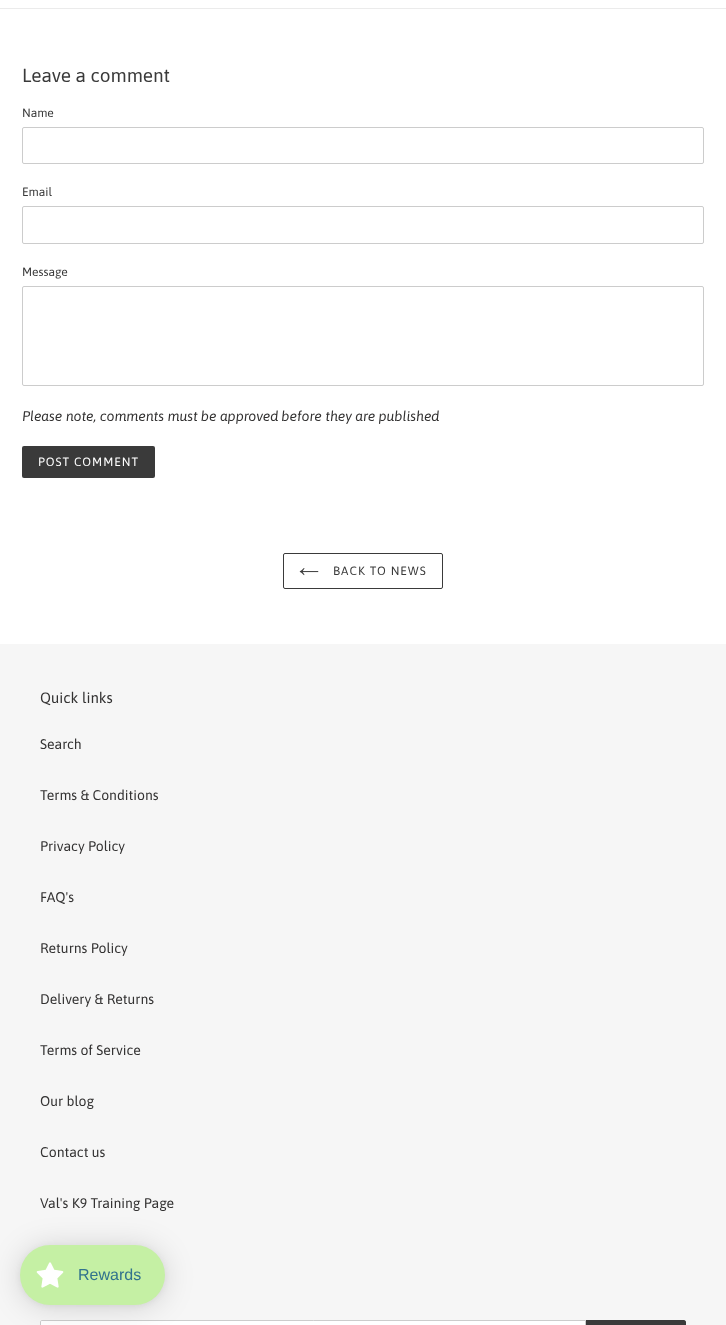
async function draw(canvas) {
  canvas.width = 726
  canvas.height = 1325
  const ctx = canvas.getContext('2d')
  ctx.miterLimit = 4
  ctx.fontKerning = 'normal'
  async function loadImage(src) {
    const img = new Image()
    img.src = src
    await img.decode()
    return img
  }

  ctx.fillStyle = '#fff'
  ctx.fillRect(0, 0, 726, 1325)
  ctx.fillStyle = '#ebebeb'
  ctx.fillRect(0, 8, 726, 1)
  ctx.font = '19px Asap'
  ctx.fillStyle = '#3a3a3a'
  ctx.fillText('Leave a comment', 22, 82)
  ctx.font = '12px Asap'
  ctx.fillText('Name', 22, 117)
  ctx.beginPath()
  ctx.roundRect(22.5, 127.5, 681, 36, 1.5)
  ctx.strokeStyle = '#ccc'
  ctx.stroke()
  ctx.fillText('Email', 22, 196)
  ctx.beginPath()
  ctx.roundRect(22.5, 206.5, 681, 37, 1.5)
  ctx.stroke()
  ctx.fillText('Message', 22, 276)
  ctx.beginPath()
  ctx.roundRect(22.5, 286.5, 681, 99, 1.5)
  ctx.stroke()
  ctx.font = 'italic 14px Asap'
  ctx.fillStyle = '#333232'
  ctx.fillText('Please note, comments must be approved before they are published', 22, 421)
  ctx.fillStyle = '#3a3a3a'
  ctx.beginPath()
  ctx.roundRect(22, 446, 133, 32, 2)
  ctx.fill()
  ctx.letterSpacing = '1px'
  ctx.font = '12px Asap'
  ctx.fillStyle = '#fff'
  ctx.fillText('POST COMMENT', 38, 466)
  ctx.beginPath()
  ctx.roundRect(283.5, 553.5, 159, 35, 1.5)
  ctx.strokeStyle = '#3a3a3a'
  ctx.stroke()
  ctx.drawImage(await loadImage('image0.png'), 299, 568, 20, 8)
  ctx.fillStyle = '#3a3a3a'
  ctx.fillText('BACK TO NEWS', 333, 575)
  ctx.fillStyle = '#f6f6f6'
  ctx.fillRect(0, 644, 726, 681)
  ctx.letterSpacing = '0px'
  ctx.font = '15px Asap'
  ctx.fillStyle = '#333232'
  ctx.fillText('Quick links', 40, 703)
  ctx.font = '14px Asap'
  ctx.fillText('Search', 40, 749)
  ctx.fillText('Terms & Conditions', 40, 800)
  ctx.fillText('Privacy Policy', 40, 851)
  ctx.fillText('FAQ\'s', 40, 902)
  ctx.fillText('Returns Policy', 40, 953)
  ctx.fillText('Delivery & Returns', 40, 1004)
  ctx.fillText('Terms of Service', 40, 1055)
  ctx.fillText('Our blog', 40, 1106)
  ctx.fillText('Contact us', 40, 1157)
  ctx.fillText('Val\'s K9 Training Page', 40, 1208)
  ctx.fillStyle = '#fff'
  ctx.beginPath()
  ctx.moveTo(42, 1320.5)
  ctx.lineTo(585.5, 1320.5)
  ctx.lineTo(585.5, 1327.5)
  ctx.lineTo(42, 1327.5)
  ctx.bezierCurveTo(41, 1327.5, 40.5, 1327, 40.5, 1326)
  ctx.lineTo(40.5, 1322)
  ctx.bezierCurveTo(40.5, 1321, 41, 1320.5, 42, 1320.5)
  ctx.closePath()
  ctx.fill()
  ctx.strokeStyle = '#ccc'
  ctx.stroke()
  ctx.fillStyle = '#3a3a3a'
  ctx.beginPath()
  ctx.moveTo(586, 1320)
  ctx.lineTo(684, 1320)
  ctx.bezierCurveTo(685, 1320, 686, 1321, 686, 1322)
  ctx.lineTo(686, 1325)
  ctx.bezierCurveTo(686, 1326, 685, 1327, 684, 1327)
  ctx.lineTo(586, 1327)
  ctx.closePath()
  ctx.fill()
  ctx.fillStyle = '#00000026'
  ctx.filter = 'blur(15px)'
  ctx.beginPath()
  ctx.roundRect(20, 1247, 145, 60, 30)
  ctx.fill()
  ctx.filter = 'none'
  ctx.fillStyle = '#0000000d'
  ctx.filter = 'blur(3px)'
  ctx.beginPath()
  ctx.roundRect(20, 1246, 145, 60, 30)
  ctx.fill()
  ctx.filter = 'none'
  ctx.fillStyle = '#c5f0a4'
  ctx.beginPath()
  ctx.roundRect(20, 1245, 145, 60, 30)
  ctx.fill()
  ctx.drawImage(await loadImage('image1.png'), 36, 1262, 28, 26)
  ctx.font = '16px Liberation Sans'
  ctx.fillStyle = '#31728d'
  ctx.fillText('Rewards', 78, 1280)
}

draw(document.querySelector('canvas'))
